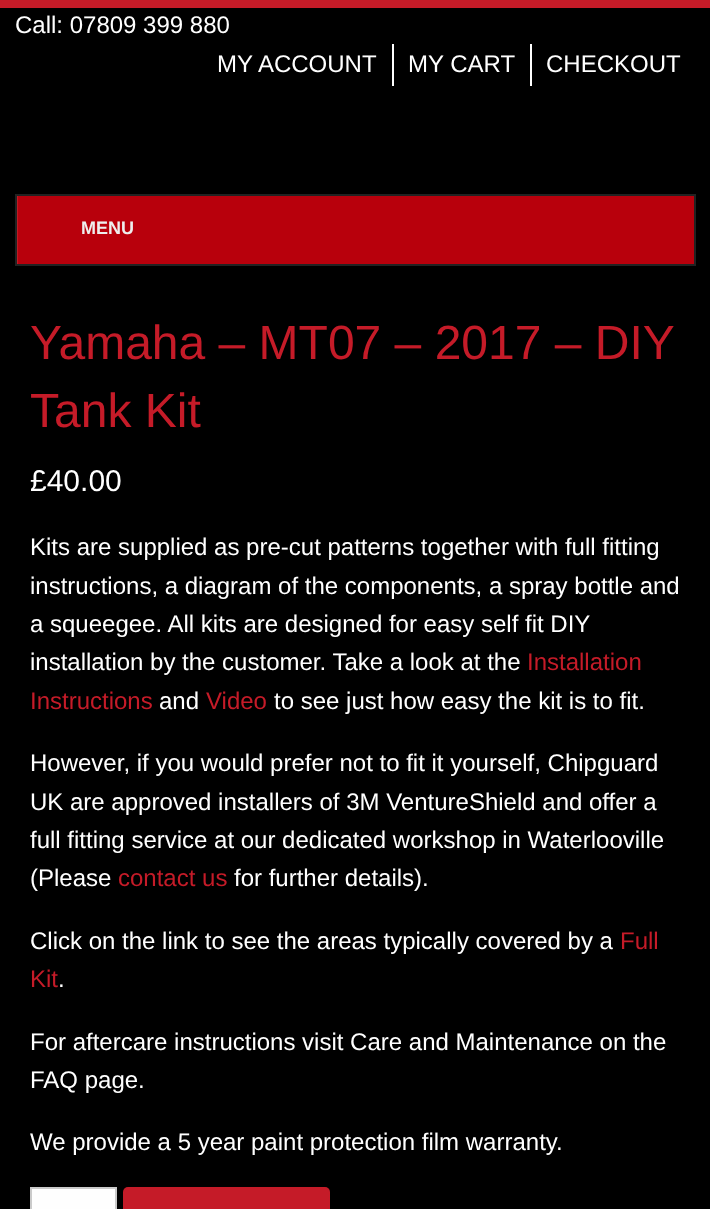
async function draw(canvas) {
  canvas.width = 710
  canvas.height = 1209
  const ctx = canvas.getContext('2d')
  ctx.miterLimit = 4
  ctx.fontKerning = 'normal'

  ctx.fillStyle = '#000'
  ctx.fillRect(0, 0, 710, 1209)
  ctx.fillStyle = '#c51b28'
  ctx.fillRect(0, 0, 710, 8)
  ctx.font = '24px Liberation Sans'
  ctx.fillStyle = '#fff'
  ctx.fillText('Call: 07809 399 880', 15, 33)
  ctx.fillRect(392, 44, 2, 42)
  ctx.fillText('MY ACCOUNT', 217, 72)
  ctx.fillRect(530, 44, 2, 42)
  ctx.fillText('MY CART', 408, 72)
  ctx.fillText('CHECKOUT', 546, 72)
  ctx.fillStyle = '#b8000c'
  ctx.fillRect(18, 196, 676, 68)
  ctx.save()
  ctx.beginPath()
  ctx.rect(17, 195, 678, 69)
  ctx.clip()
  ctx.fillStyle = '#bf1a24'
  ctx.beginPath()
  ctx.moveTo(-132, 46)
  ctx.lineTo(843, 46)
  ctx.lineTo(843, 412)
  ctx.lineTo(-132, 412)
  ctx.closePath()
  ctx.moveTo(18, 196)
  ctx.lineTo(696, 196)
  ctx.lineTo(696, 266)
  ctx.lineTo(18, 266)
  ctx.closePath()
  ctx.fill('evenodd')
  ctx.restore()
  ctx.strokeStyle = '#222'
  ctx.lineWidth = 2
  ctx.strokeRect(16, 195, 679, 70)
  ctx.font = 'bold 18px Liberation Sans'
  ctx.fillStyle = '#eee'
  ctx.fillText('MENU', 81, 234)
  ctx.font = '48px Liberation Sans'
  ctx.fillStyle = '#c51b28'
  ctx.fillText('Yamaha – MT07 – 2017 – DIY', 30, 359)
  ctx.fillText('Tank Kit', 30, 427)
  ctx.font = '30px Liberation Sans'
  ctx.fillStyle = '#fff'
  ctx.fillText('£40.00', 30, 491)
  ctx.font = '24px Liberation Sans'
  ctx.fillText('Kits are supplied as pre-cut patterns together with full fitting', 30, 555)
  ctx.fillText('instructions, a diagram of the components, a spray bottle and', 30, 594)
  ctx.fillText('a squeegee. All kits are designed for easy self fit DIY', 30, 632)
  ctx.fillText('installation by the customer. Take a look at the', 30, 670)
  ctx.fillStyle = '#c51b28'
  ctx.fillText('Installation', 527, 670)
  ctx.fillText('Instructions', 30, 709)
  ctx.fillStyle = '#fff'
  ctx.fillText('and', 159, 709)
  ctx.fillStyle = '#c51b28'
  ctx.fillText('Video', 206, 709)
  ctx.fillStyle = '#fff'
  ctx.fillText('to see just how easy the kit is to fit.', 274, 709)
  ctx.fillText('However, if you would prefer not to fit it yourself, Chipguard', 30, 771)
  ctx.fillText('UK are approved installers of 3M VentureShield and offer a', 30, 810)
  ctx.fillText('full fitting service at our dedicated workshop in Waterlooville', 30, 848)
  ctx.fillText('(Please', 30, 886)
  ctx.fillStyle = '#c51b28'
  ctx.fillText('contact us', 118, 886)
  ctx.fillStyle = '#fff'
  ctx.fillText('for further details).', 234, 886)
  ctx.fillText('Click on the link to see the areas typically covered by a', 30, 949)
  ctx.fillStyle = '#c51b28'
  ctx.fillText('Full', 620, 949)
  ctx.fillText('Kit', 30, 987)
  ctx.fillStyle = '#fff'
  ctx.fillText('.', 58, 987)
  ctx.fillText('For aftercare instructions visit Care and Maintenance on the', 30, 1050)
  ctx.fillText('FAQ page.', 30, 1088)
  ctx.fillText('We provide a 5 year paint protection film warranty.', 30, 1150)
  ctx.fillStyle = '#fefefe'
  ctx.beginPath()
  ctx.rect(31, 1188, 85, 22)
  ctx.fill()
  ctx.strokeStyle = '#cacaca'
  ctx.stroke()
  ctx.fillStyle = '#c51b28'
  ctx.beginPath()
  ctx.roundRect(123, 1187, 207, 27, 5)
  ctx.fill()
}

draw(document.querySelector('canvas'))
